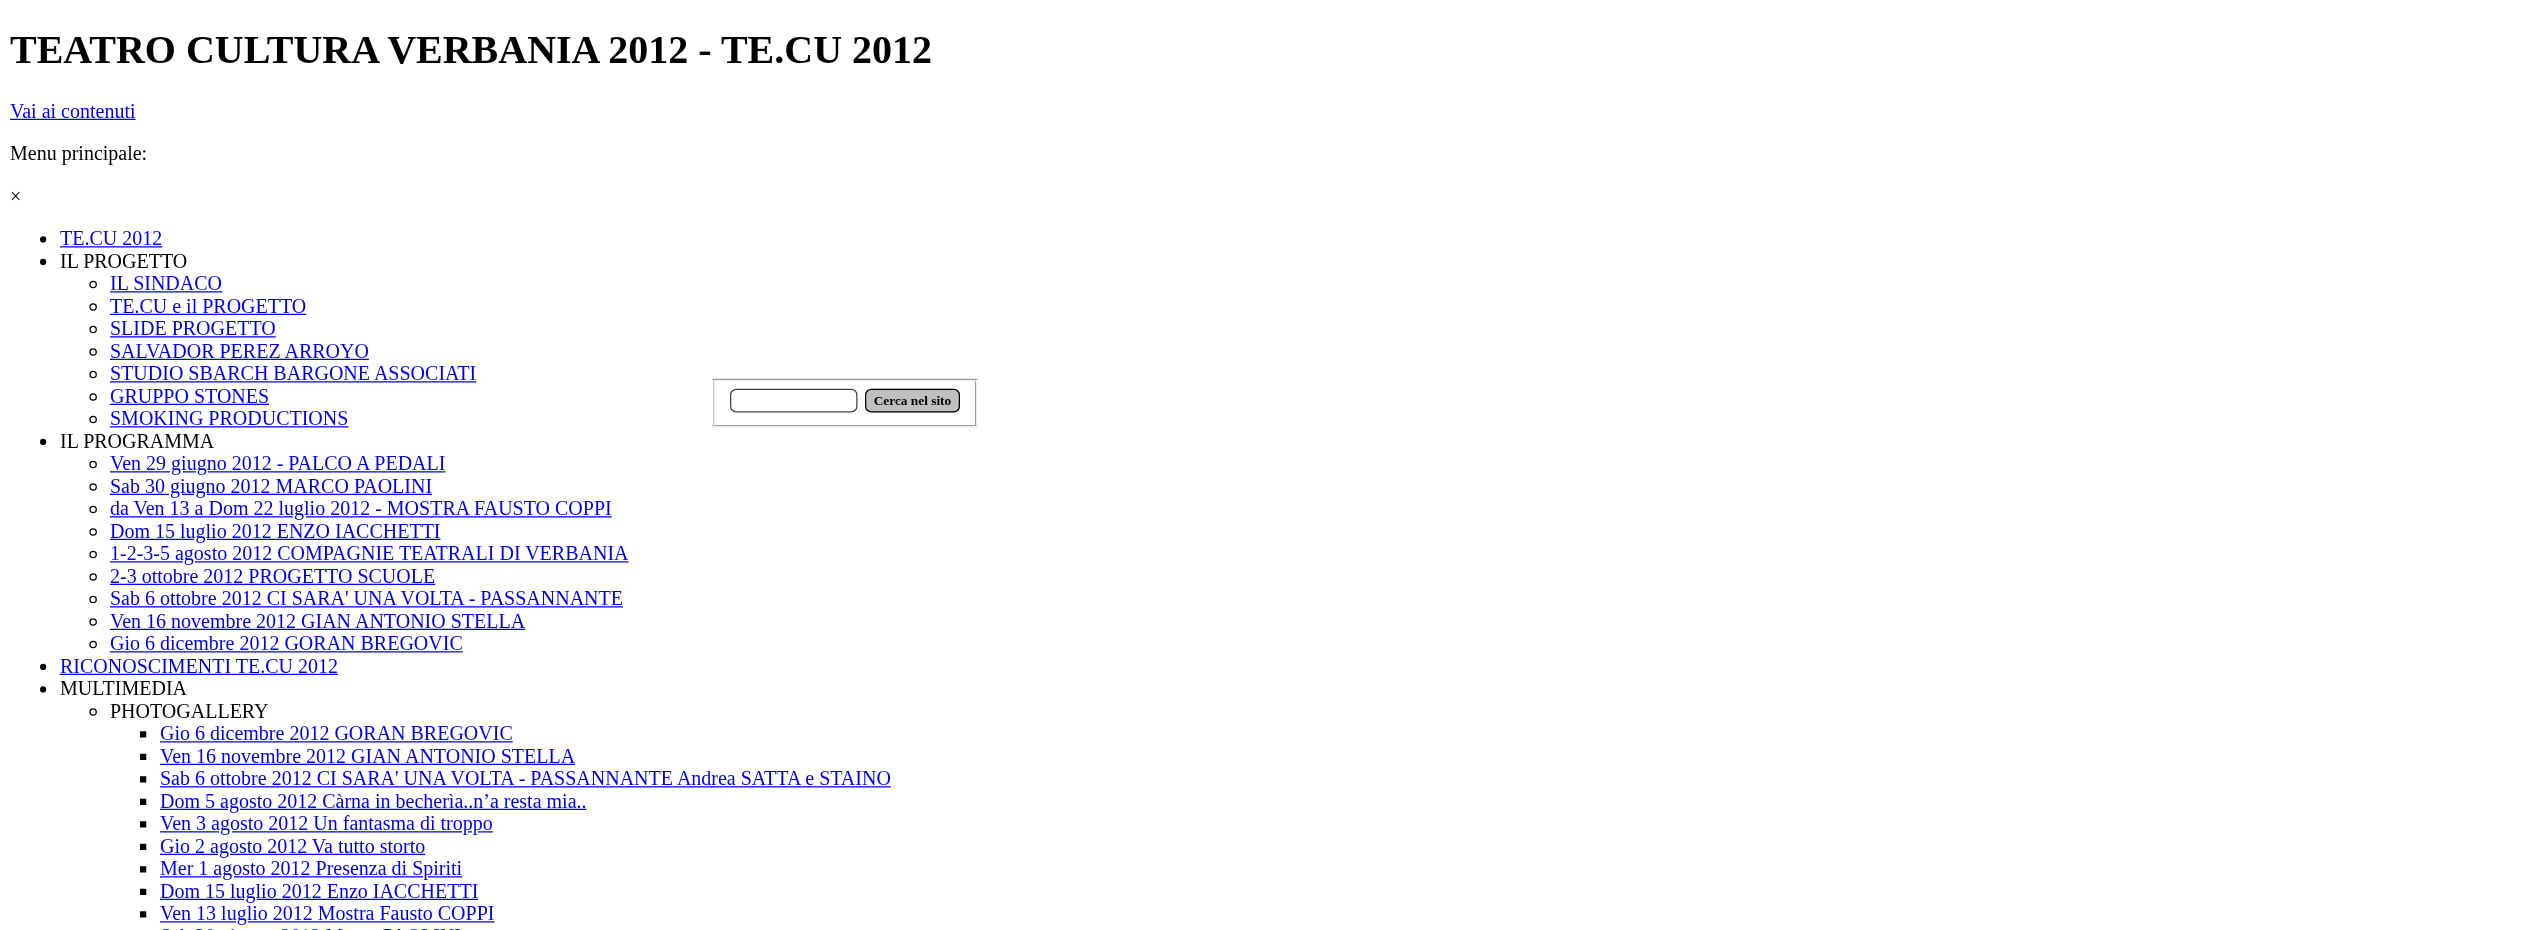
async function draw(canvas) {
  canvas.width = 2542
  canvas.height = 930
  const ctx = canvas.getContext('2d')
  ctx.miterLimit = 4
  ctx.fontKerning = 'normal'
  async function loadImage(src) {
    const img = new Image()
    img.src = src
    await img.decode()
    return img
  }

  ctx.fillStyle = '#fff'
  ctx.fillRect(0, 0, 2542, 930)
  ctx.drawImage(await loadImage('image0.png'), 10, 37, 968, 893)
}

draw(document.querySelector('canvas'))
